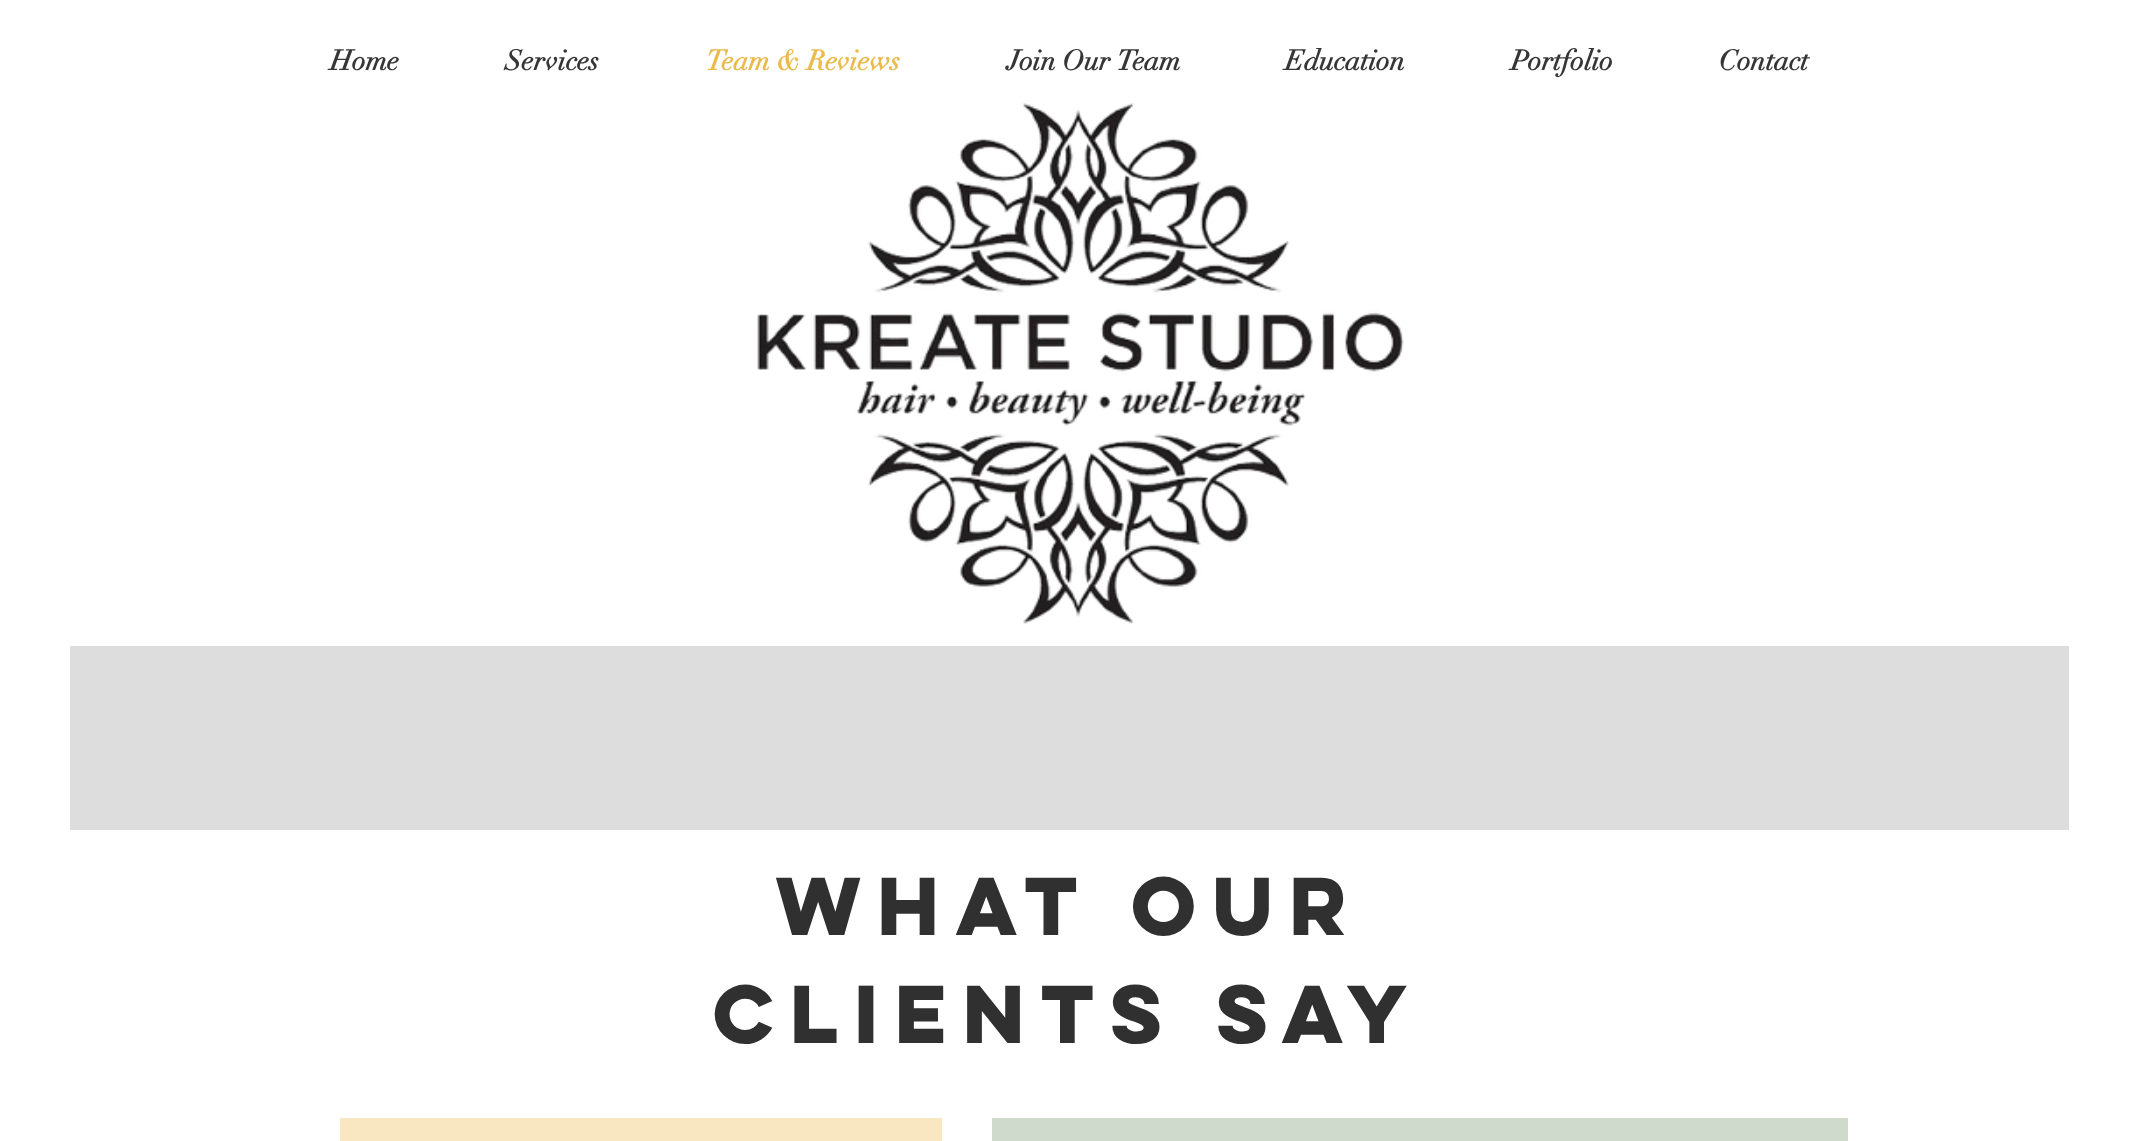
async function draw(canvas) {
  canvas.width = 2138
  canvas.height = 1141
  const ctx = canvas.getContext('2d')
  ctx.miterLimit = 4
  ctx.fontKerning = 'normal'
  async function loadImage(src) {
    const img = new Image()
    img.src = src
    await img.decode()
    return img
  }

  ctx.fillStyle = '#fff'
  ctx.fillRect(0, 0, 2138, 1141)
  ctx.font = 'bold 28px didot'
  ctx.fillStyle = '#363636'
  ctx.fillText('Home', 330, 70)
  ctx.fillText('Services', 505, 70)
  ctx.fillStyle = '#ebba4d'
  ctx.fillText('Team & Reviews', 706, 70)
  ctx.fillStyle = '#363636'
  ctx.fillText('Join Our Team', 1007, 70)
  ctx.fillText('Education', 1285, 70)
  ctx.fillText('Portfolio', 1511, 70)
  ctx.fillText('Contact', 1719, 70)
  ctx.drawImage(await loadImage('image0.png'), 757, 103, 647, 521)
  ctx.fillStyle = '#ddd'
  ctx.fillRect(70, 646, 1999, 184)
  ctx.font = 'bold 73.5px "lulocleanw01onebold"'
  ctx.fillStyle = '#303030'
  ctx.fillText('what our', 776, 935)
  ctx.fillText('Clients say', 713, 1043)
  ctx.fillStyle = '#f8e7c1'
  ctx.fillRect(340, 1118, 602, 23)
  ctx.fillStyle = '#d0dacc'
  ctx.fillRect(992, 1118, 856, 23)
}

draw(document.querySelector('canvas'))
